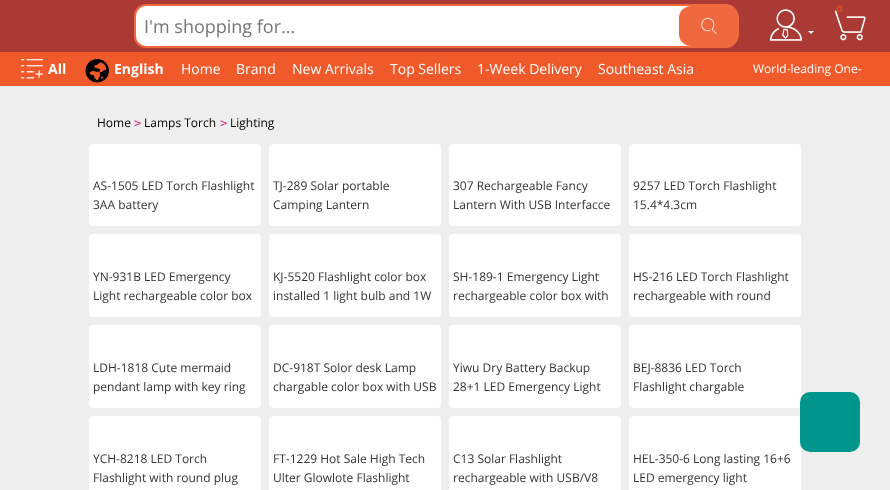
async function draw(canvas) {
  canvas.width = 890
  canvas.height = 490
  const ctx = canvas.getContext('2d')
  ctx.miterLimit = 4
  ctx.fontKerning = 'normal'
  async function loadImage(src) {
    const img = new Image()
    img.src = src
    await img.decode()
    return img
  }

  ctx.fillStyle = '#eee'
  ctx.fillRect(0, 0, 890, 490)
  ctx.fillStyle = '#ac3a34'
  ctx.fillRect(0, 0, 890, 52)
  ctx.fillStyle = '#fff'
  ctx.beginPath()
  ctx.roundRect(135, 5, 602, 42, 11)
  ctx.fill()
  ctx.strokeStyle = '#f0683e'
  ctx.lineWidth = 2
  ctx.stroke()
  ctx.font = '18px Open Sans'
  ctx.fillStyle = '#757575'
  ctx.fillText('I\'m shopping for...', 144, 33)
  ctx.fillStyle = '#f0683e'
  ctx.beginPath()
  ctx.roundRect(679, 6, 60, 40, 12)
  ctx.fill()
  ctx.drawImage(await loadImage('image0.png'), 701, 18, 16, 16)
  ctx.drawImage(await loadImage('image1.png'), 770, 9, 32, 32)
  ctx.fillStyle = '#fff'
  ctx.beginPath()
  ctx.moveTo(808, 31)
  ctx.lineTo(814, 31)
  ctx.lineTo(811, 34)
  ctx.closePath()
  ctx.fill()
  ctx.drawImage(await loadImage('image2.png'), 834, 10, 32, 31)
  ctx.font = '9px Open Sans'
  ctx.fillStyle = '#f60'
  ctx.fillText('0', 837, 12)
  ctx.fillStyle = '#f0592a'
  ctx.fillRect(0, 52, 890, 34)
  ctx.drawImage(await loadImage('image3.png'), 21, 59, 22, 20)
  ctx.font = 'bold 14px Open Sans'
  ctx.fillStyle = '#fff'
  ctx.fillText('All', 48, 74)
  ctx.drawImage(await loadImage('image4.png'), 85, 59, 24, 24)
  ctx.fillText('English', 114, 74)
  ctx.font = '14px Open Sans'
  ctx.fillText('Home', 181, 74)
  ctx.fillText('Brand', 236, 74)
  ctx.fillText('New Arrivals', 292, 74)
  ctx.fillText('Top Sellers', 390, 74)
  ctx.fillText('1-Week Delivery', 477, 74)
  ctx.fillText('Southeast Asia', 598, 74)
  ctx.font = '12px Open Sans'
  ctx.fillText('World-leading One-', 753, 73)
  ctx.fillStyle = '#000'
  ctx.fillText('Home', 97, 127)
  ctx.font = '12px DejaVu Sans Mono'
  ctx.fillStyle = '#d63384'
  ctx.fillText('>', 134, 127)
  ctx.font = '12px Open Sans'
  ctx.fillStyle = '#000'
  ctx.fillText('Lamps Torch', 144, 127)
  ctx.font = '12px DejaVu Sans Mono'
  ctx.fillStyle = '#d63384'
  ctx.fillText('>', 220, 127)
  ctx.font = '12px Open Sans'
  ctx.fillStyle = '#000'
  ctx.fillText('Lighting', 230, 127)
  ctx.fillStyle = '#fff'
  ctx.beginPath()
  ctx.roundRect(89, 144, 172, 82, 4)
  ctx.fill()
  ctx.fillStyle = '#333'
  ctx.fillText('AS-1505 LED Torch Flashlight', 93, 190)
  ctx.fillText('3AA battery', 93, 209)
  ctx.fillStyle = '#fff'
  ctx.beginPath()
  ctx.roundRect(269, 144, 172, 82, 4)
  ctx.fill()
  ctx.fillStyle = '#333'
  ctx.fillText('TJ-289 Solar portable', 273, 190)
  ctx.fillText('Camping Lantern', 273, 209)
  ctx.fillStyle = '#fff'
  ctx.beginPath()
  ctx.roundRect(449, 144, 172, 82, 4)
  ctx.fill()
  ctx.fillStyle = '#333'
  ctx.fillText('307 Rechargeable Fancy', 453, 190)
  ctx.fillText('Lantern With USB Interfacce', 453, 209)
  ctx.fillStyle = '#fff'
  ctx.beginPath()
  ctx.roundRect(629, 144, 172, 82, 4)
  ctx.fill()
  ctx.fillStyle = '#333'
  ctx.fillText('9257 LED Torch Flashlight', 633, 190)
  ctx.fillText('15.4*4.3cm', 633, 209)
  ctx.fillStyle = '#fff'
  ctx.beginPath()
  ctx.roundRect(89, 234, 172, 83, 4)
  ctx.fill()
  ctx.fillStyle = '#333'
  ctx.fillText('YN-931B LED Emergency', 93, 281)
  ctx.fillText('Light rechargeable color box', 93, 300)
  ctx.fillStyle = '#fff'
  ctx.beginPath()
  ctx.roundRect(269, 234, 172, 83, 4)
  ctx.fill()
  ctx.fillStyle = '#333'
  ctx.fillText('KJ-5520 Flashlight color box', 273, 281)
  ctx.fillText('installed 1 light bulb and 1W', 273, 300)
  ctx.fillStyle = '#fff'
  ctx.beginPath()
  ctx.roundRect(449, 234, 172, 83, 4)
  ctx.fill()
  ctx.fillStyle = '#333'
  ctx.fillText('SH-189-1 Emergency Light', 453, 281)
  ctx.fillText('rechargeable color box with', 453, 300)
  ctx.fillStyle = '#fff'
  ctx.beginPath()
  ctx.roundRect(629, 234, 172, 83, 4)
  ctx.fill()
  ctx.fillStyle = '#333'
  ctx.fillText('HS-216 LED Torch Flashlight', 633, 281)
  ctx.fillText('rechargeable with round', 633, 300)
  ctx.fillStyle = '#fff'
  ctx.beginPath()
  ctx.roundRect(89, 325, 172, 83, 4)
  ctx.fill()
  ctx.fillStyle = '#333'
  ctx.fillText('LDH-1818 Cute mermaid', 93, 372)
  ctx.fillText('pendant lamp with key ring', 93, 391)
  ctx.fillStyle = '#fff'
  ctx.beginPath()
  ctx.roundRect(269, 325, 172, 83, 4)
  ctx.fill()
  ctx.fillStyle = '#333'
  ctx.fillText('DC-918T Solor desk Lamp', 273, 372)
  ctx.fillText('chargable color box with USB', 273, 391)
  ctx.fillStyle = '#fff'
  ctx.beginPath()
  ctx.roundRect(449, 325, 172, 83, 4)
  ctx.fill()
  ctx.fillStyle = '#333'
  ctx.fillText('Yiwu Dry Battery Backup', 453, 372)
  ctx.fillText('28+1 LED Emergency Light', 453, 391)
  ctx.fillStyle = '#fff'
  ctx.beginPath()
  ctx.roundRect(629, 325, 172, 83, 4)
  ctx.fill()
  ctx.fillStyle = '#333'
  ctx.fillText('BEJ-8836 LED Torch', 633, 372)
  ctx.fillText('Flashlight chargable', 633, 391)
  ctx.fillStyle = '#fff'
  ctx.beginPath()
  ctx.roundRect(89, 416, 172, 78, 4)
  ctx.fill()
  ctx.fillStyle = '#333'
  ctx.fillText('YCH-8218 LED Torch', 93, 463)
  ctx.fillText('Flashlight with round plug', 93, 482)
  ctx.fillStyle = '#fff'
  ctx.beginPath()
  ctx.roundRect(269, 416, 172, 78, 4)
  ctx.fill()
  ctx.fillStyle = '#333'
  ctx.fillText('FT-1229 Hot Sale High Tech', 273, 463)
  ctx.fillText('Ulter Glowlote Flashlight', 273, 482)
  ctx.fillStyle = '#fff'
  ctx.beginPath()
  ctx.roundRect(449, 416, 172, 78, 4)
  ctx.fill()
  ctx.fillStyle = '#333'
  ctx.fillText('C13 Solar Flashlight', 453, 463)
  ctx.fillText('rechargeable with USB/V8', 453, 482)
  ctx.fillStyle = '#fff'
  ctx.beginPath()
  ctx.roundRect(629, 416, 172, 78, 4)
  ctx.fill()
  ctx.fillStyle = '#333'
  ctx.fillText('HEL-350-6 Long lasting 16+6', 633, 463)
  ctx.fillText('LED emergency light', 633, 482)
  ctx.fillStyle = '#00968e'
  ctx.beginPath()
  ctx.roundRect(800, 392, 60, 60, 10)
  ctx.fill()
}

draw(document.querySelector('canvas'))
